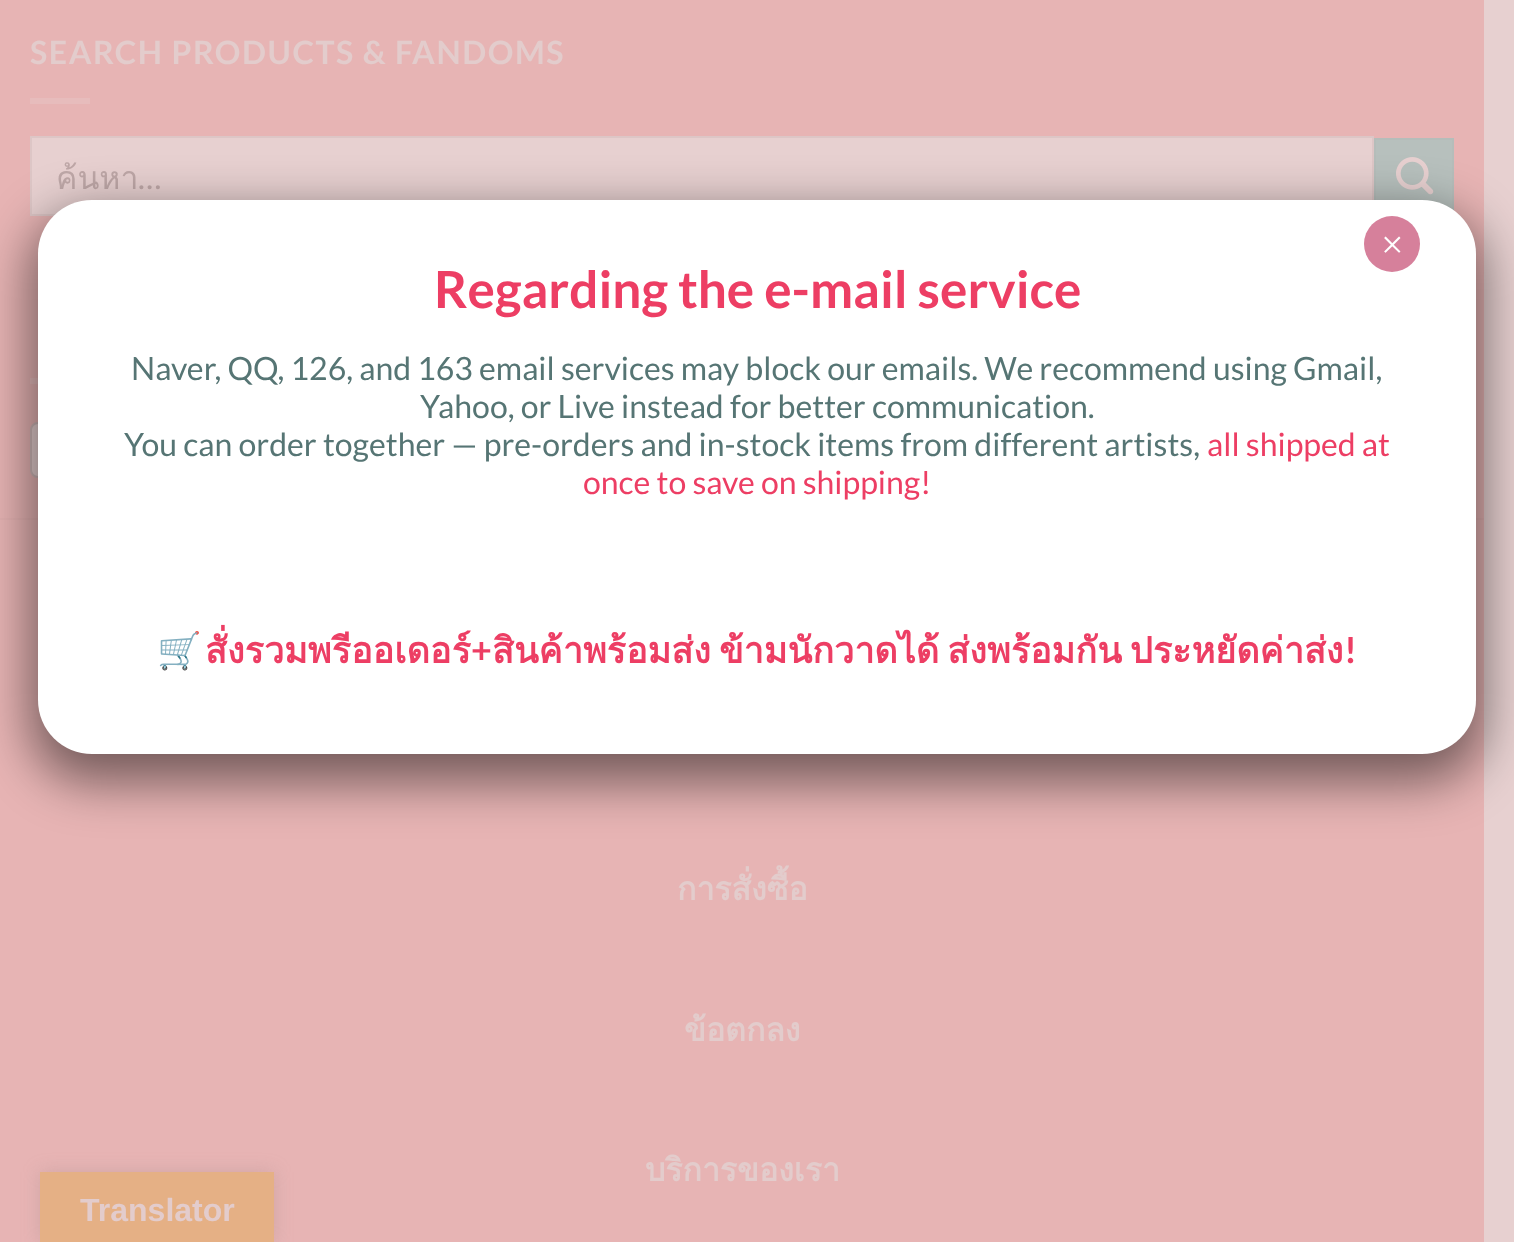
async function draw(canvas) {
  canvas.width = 1514
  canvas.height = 1242
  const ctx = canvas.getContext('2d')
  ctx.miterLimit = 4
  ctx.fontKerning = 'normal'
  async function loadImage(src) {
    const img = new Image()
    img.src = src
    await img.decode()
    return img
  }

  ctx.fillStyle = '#e7d0d0'
  ctx.fillRect(0, 0, 1514, 1242)
  ctx.fillStyle = '#e7b4b4'
  ctx.fillRect(0, 0, 1484, 518)
  ctx.letterSpacing = '1.6px'
  ctx.font = 'bold 32px Lato'
  ctx.fillStyle = '#e3cccc'
  ctx.fillText('SEARCH PRODUCTS & FANDOMS', 30, 64)
  ctx.fillStyle = '#e7bcbc'
  ctx.fillRect(30, 98, 60, 6)
  ctx.fillStyle = '#e7d0d0'
  ctx.beginPath()
  ctx.rect(31, 137, 1342, 78)
  ctx.fill()
  ctx.strokeStyle = '#ddc6c6'
  ctx.lineWidth = 2
  ctx.stroke()
  ctx.save()
  ctx.beginPath()
  ctx.rect(56, 154, 1284, 50)
  ctx.clip()
  ctx.letterSpacing = '0px'
  ctx.font = '32px Loma'
  ctx.fillStyle = '#bea7a7'
  ctx.fillText('ค้นหา', 56, 189)
  ctx.restore()
  ctx.letterSpacing = '0px'
  ctx.font = '32px Lato'
  ctx.fillStyle = '#bea7a7'
  ctx.fillText('…', 138, 189)
  ctx.fillStyle = '#b7c0bd'
  ctx.fillRect(1376, 140, 76, 70)
  ctx.strokeStyle = '#b5bdba'
  ctx.strokeRect(1375, 139, 78, 76)
  ctx.drawImage(await loadImage('image0.png'), 1396, 157, 38, 38)
  ctx.fillStyle = '#e7bcbc'
  ctx.fillRect(30, 378, 8, 6)
  ctx.fillStyle = '#e7d0d0'
  ctx.beginPath()
  ctx.roundRect(31, 423, 1422, 54, 7)
  ctx.fill()
  ctx.strokeStyle = '#ceb7b7'
  ctx.stroke()
  ctx.fillStyle = '#e7b4b4'
  ctx.fillRect(0, 520, 1484, 722)
  ctx.fillStyle = '#e3b1b1'
  ctx.fillRect(0, 518, 1484, 2)
  ctx.font = 'bold 32px Loma'
  ctx.fillStyle = '#e3cccc'
  ctx.fillText('การสั่งซื้อ', 677, 900)
  ctx.fillText('ข้อตกลง', 684, 1041)
  ctx.fillText('บริการของเรา', 645, 1181)
  ctx.fillStyle = '#02020280'
  ctx.filter = 'blur(25px)'
  ctx.beginPath()
  ctx.roundRect(30, 212, 1454, 570, 62)
  ctx.fill()
  ctx.filter = 'none'
  ctx.fillStyle = '#fff'
  ctx.beginPath()
  ctx.roundRect(38, 200, 1438, 554, 54)
  ctx.fill()
  ctx.fillStyle = '#d6809b'
  ctx.beginPath()
  ctx.arc(1392, 244, 28, 0, 2 * Math.PI)
  ctx.fill()
  ctx.font = '40px Liberation Serif'
  ctx.fillStyle = '#fff'
  ctx.fillText('×', 1381, 258)
  ctx.font = 'bold 51.25px Lato'
  ctx.fillStyle = '#ed3e64'
  ctx.fillText('Regarding the e-mail service', 434, 308)
  ctx.font = '32px Lato'
  ctx.fillStyle = '#567574'
  ctx.fillText('Naver, QQ, 126, and 163 email services may block our emails. We recommend using Gmail,', 131, 380)
  ctx.fillText('Yahoo, or Live instead for better communication.', 420, 418)
  ctx.fillText('You can order together — pre-orders and in-stock items from different artists,', 124, 456)
  ctx.fillStyle = '#ed3e64'
  ctx.fillText('all shipped at', 1207, 456)
  ctx.fillText('once to save on shipping!', 583, 494)
  ctx.font = 'bold 36px Noto Color Emoji'
  ctx.fillText('🛒', 157, 663)
  ctx.font = 'bold 36px Loma'
  ctx.fillText('สั่งรวมพรีออเดอร์', 205, 663)
  ctx.font = 'bold 36px Lato'
  ctx.fillText('+', 471, 663)
  ctx.wordSpacing = '-4px'
  ctx.font = 'bold 36px Loma'
  ctx.fillText('สินค้าพร้อมส่ง ข้ามนักวาดได้ ส่งพร้อมกัน ประหยัดค่าส่ง', 492, 663)
  ctx.wordSpacing = '0px'
  ctx.font = 'bold 36px Lato'
  ctx.fillText('!', 1344, 663)
  ctx.fillStyle = '#9b84844d'
  ctx.filter = 'blur(9px)'
  ctx.beginPath()
  ctx.rect(40, 1172, 234, 70)
  ctx.fill()
  ctx.filter = 'none'
  ctx.fillStyle = '#e5b085'
  ctx.fillRect(40, 1172, 234, 70)
  ctx.font = 'bold 32px Liberation Sans'
  ctx.fillStyle = '#e3cccc'
  ctx.fillText('Translator', 80, 1221)
}

draw(document.querySelector('canvas'))
